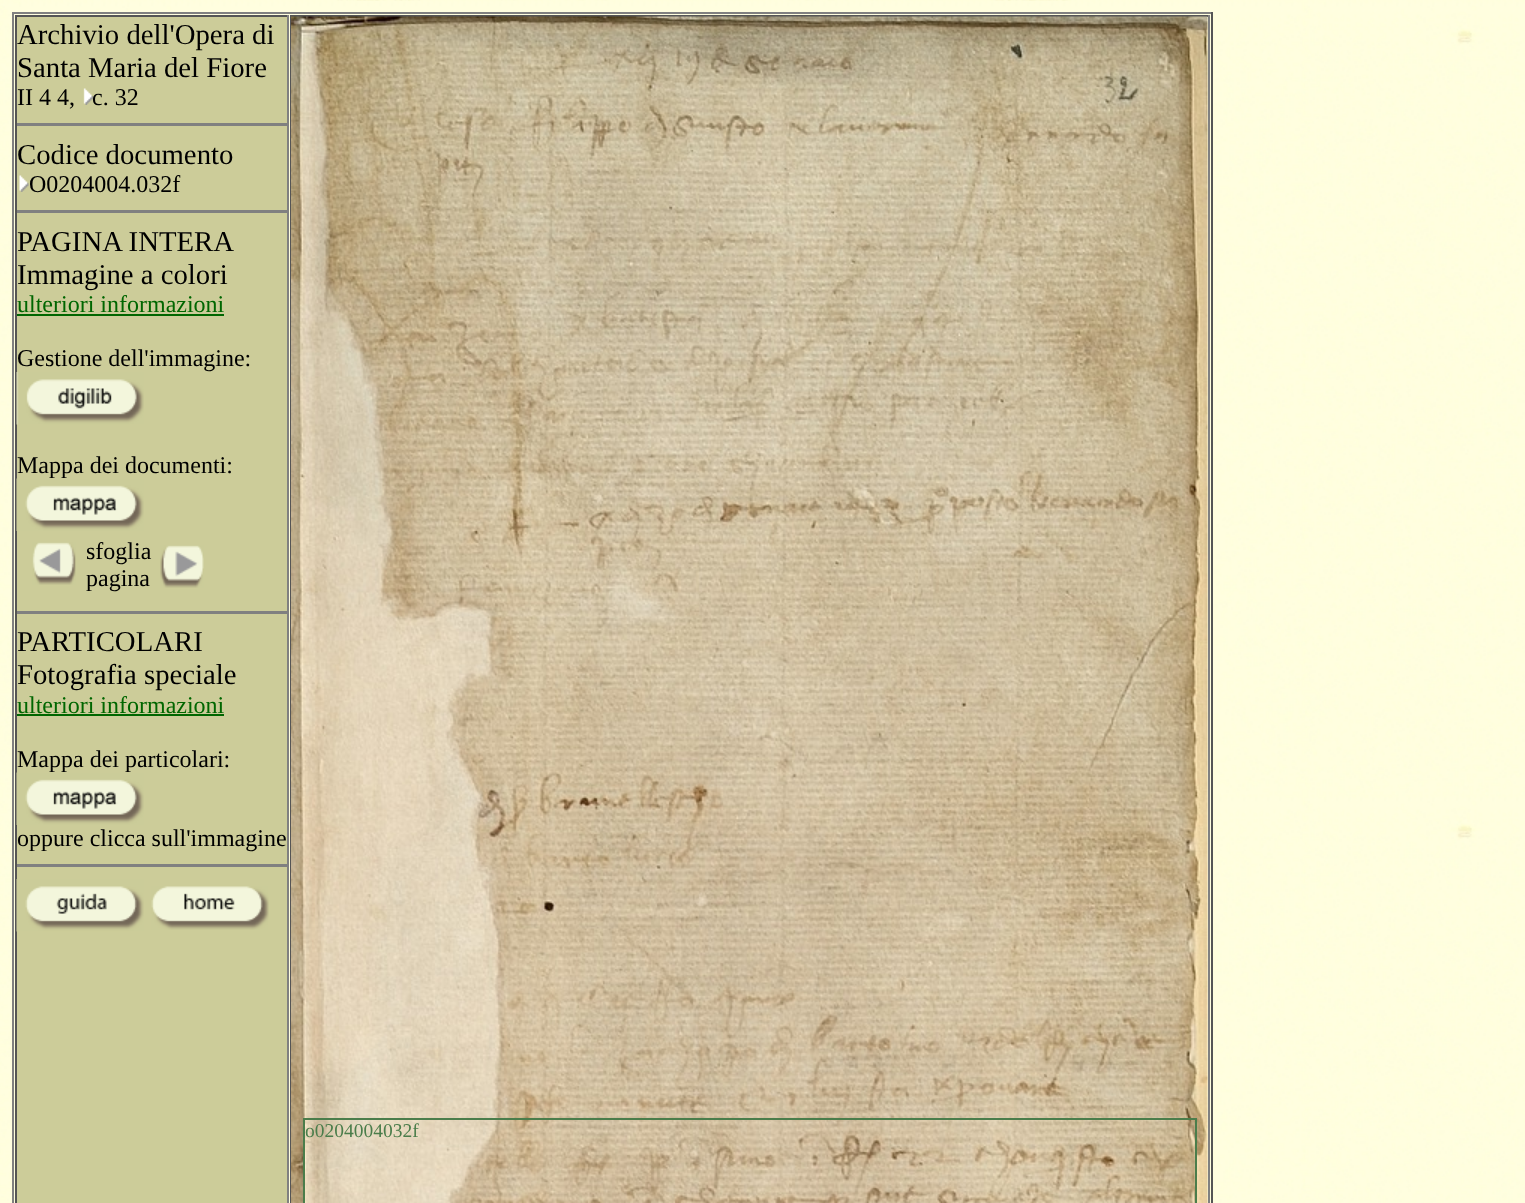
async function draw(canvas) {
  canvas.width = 1525
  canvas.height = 1203
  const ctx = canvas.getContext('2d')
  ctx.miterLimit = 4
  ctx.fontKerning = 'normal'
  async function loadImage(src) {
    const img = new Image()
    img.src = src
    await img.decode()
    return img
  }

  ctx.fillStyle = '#fff'
  ctx.fillRect(0, 0, 1525, 1203)
  ctx.drawImage(await loadImage('image0.png'), 0, 0, 1525, 1203)
  ctx.fillStyle = '#808080'
  ctx.fillRect(12, 12, 1200, 2)
  ctx.fillStyle = '#555'
  ctx.fillRect(1211, 12, 2, 1191)
  ctx.fillStyle = '#808080'
  ctx.fillRect(12, 12, 2, 1191)
  ctx.fillStyle = '#cc9'
  ctx.fillRect(17, 17, 270, 1186)
  ctx.fillStyle = '#555'
  ctx.fillRect(15, 15, 273, 2)
  ctx.fillStyle = '#808080'
  ctx.fillRect(287, 15, 2, 1188)
  ctx.fillStyle = '#555'
  ctx.fillRect(15, 15, 2, 1188)
  ctx.font = '28.75px Liberation Serif'
  ctx.fillStyle = '#000'
  ctx.fillText('Archivio dell\'Opera di', 17, 44)
  ctx.fillText('Santa Maria del Fiore', 17, 77)
  ctx.font = '24px Liberation Serif'
  ctx.fillText('II 4 4,', 17, 105)
  ctx.drawImage(await loadImage('image1.png'), 83, 88, 10, 17)
  ctx.fillText('c. 32', 92, 105)
  ctx.fillStyle = '#808080'
  ctx.fillRect(17, 123, 270, 3)
  ctx.font = '28.75px Liberation Serif'
  ctx.fillStyle = '#000'
  ctx.fillText('Codice documento', 17, 164)
  ctx.drawImage(await loadImage('image2.png'), 19, 175, 10, 17)
  ctx.font = '24px Liberation Serif'
  ctx.fillText('O0204004.032f', 29, 192)
  ctx.fillStyle = '#808080'
  ctx.fillRect(17, 210, 270, 3)
  ctx.font = '28.75px Liberation Serif'
  ctx.fillStyle = '#000'
  ctx.fillText('PAGINA INTERA', 17, 251)
  ctx.fillText('Immagine a colori', 17, 284)
  ctx.font = '24px Liberation Serif'
  ctx.fillStyle = '#060'
  ctx.fillText('ulteriori informazioni', 17, 312)
  ctx.fillRect(17, 314, 207, 2)
  ctx.fillStyle = '#000'
  ctx.fillText('Gestione dell\'immagine:', 17, 366)
  ctx.drawImage(await loadImage('image3.png'), 16, 372, 128, 53)
  ctx.fillText('Mappa dei documenti:', 17, 473)
  ctx.drawImage(await loadImage('image4.png'), 16, 478, 128, 53)
  ctx.drawImage(await loadImage('image5.png'), 32, 542, 44, 43)
  ctx.fillText('sfoglia', 86, 559)
  ctx.fillText('pagina', 86, 586)
  ctx.drawImage(await loadImage('image6.png'), 160, 545, 44, 43)
  ctx.fillStyle = '#808080'
  ctx.fillRect(17, 611, 270, 3)
  ctx.font = '28.75px Liberation Serif'
  ctx.fillStyle = '#000'
  ctx.fillText('PARTICOLARI', 17, 651)
  ctx.fillText('Fotografia speciale', 17, 684)
  ctx.font = '24px Liberation Serif'
  ctx.fillStyle = '#060'
  ctx.fillText('ulteriori informazioni', 17, 713)
  ctx.fillRect(17, 714, 207, 2)
  ctx.fillStyle = '#000'
  ctx.fillText('Mappa dei particolari:', 17, 767)
  ctx.drawImage(await loadImage('image7.png'), 16, 772, 128, 53)
  ctx.fillText('oppure clicca sull\'immagine', 17, 846)
  ctx.fillStyle = '#808080'
  ctx.fillRect(17, 864, 270, 3)
  ctx.drawImage(await loadImage('image8.png'), 16, 879, 128, 53)
  ctx.drawImage(await loadImage('image9.png'), 151, 886, 118, 44)
  ctx.fillStyle = '#555'
  ctx.fillRect(290, 15, 919, 2)
  ctx.fillStyle = '#808080'
  ctx.fillRect(1208, 15, 2, 1188)
  ctx.fillStyle = '#555'
  ctx.fillRect(290, 15, 2, 1188)
  ctx.drawImage(await loadImage('image10.png'), 291, 16, 917, 1187)
  ctx.strokeStyle = '#4b7d4b'
  ctx.lineWidth = 2
  ctx.strokeRect(304, 1119, 892, 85)
  ctx.font = '19.5px Liberation Serif'
  ctx.fillStyle = '#4b7d4b'
  ctx.fillText('o0204004032f', 305, 1137)
}

draw(document.querySelector('canvas'))
